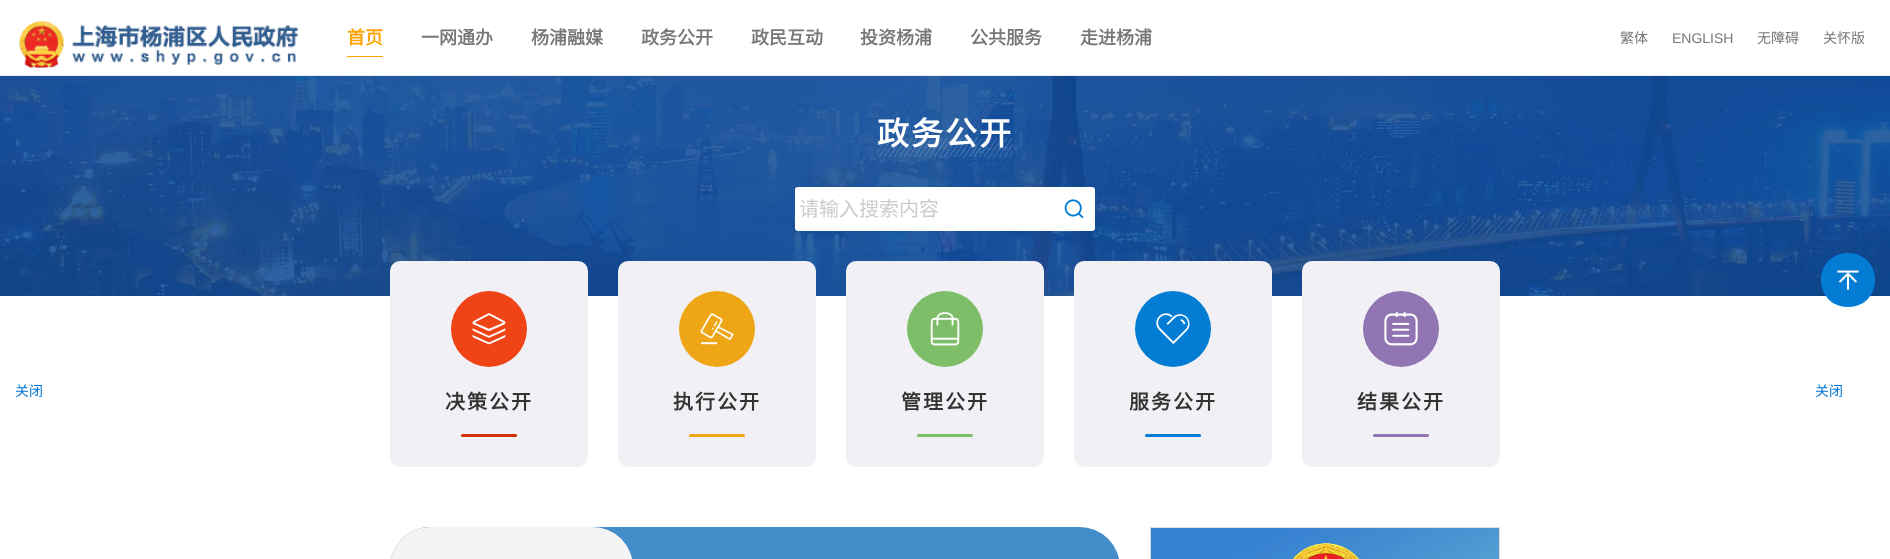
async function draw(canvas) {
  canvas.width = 1890
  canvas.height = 559
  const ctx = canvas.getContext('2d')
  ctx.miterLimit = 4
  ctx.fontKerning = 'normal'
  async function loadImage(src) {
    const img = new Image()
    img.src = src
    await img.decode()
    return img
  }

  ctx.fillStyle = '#fff'
  ctx.fillRect(0, 0, 1890, 559)
  ctx.fillStyle = '#eee'
  ctx.fillRect(0, 75, 1890, 1)
  ctx.drawImage(await loadImage('image0.png'), 19, 21, 279, 47)
  ctx.fillStyle = '#ffa202'
  ctx.fillRect(347, 56, 36, 1)
  ctx.font = 'bold 18px Noto Sans CJK SC'
  ctx.fillText('首页', 347, 44)
  ctx.fillStyle = '#777'
  ctx.fillText('一网通办', 421, 44)
  ctx.fillText('杨浦融媒', 531, 44)
  ctx.fillText('政务公开', 641, 44)
  ctx.fillText('政民互动', 751, 44)
  ctx.fillText('投资杨浦', 860, 44)
  ctx.fillText('公共服务', 970, 44)
  ctx.fillText('走进杨浦', 1080, 44)
  ctx.font = '14px Noto Sans CJK SC'
  ctx.fillText('繁体', 1620, 43)
  ctx.font = '14px Liberation Sans'
  ctx.fillText('ENGLISH', 1672, 43)
  ctx.font = '14px Noto Sans CJK SC'
  ctx.fillText('无障碍', 1757, 43)
  ctx.fillText('关怀版', 1823, 43)
  ctx.drawImage(await loadImage('image1.png'), 0, 76, 1890, 220)
  ctx.drawImage(await loadImage('image2.png'), 877, 138, 136, 19)
  ctx.letterSpacing = '2px'
  ctx.font = 'bold 32px Noto Sans CJK SC'
  ctx.fillStyle = '#fff'
  ctx.fillText('政务公开', 877, 145)
  ctx.beginPath()
  ctx.roundRect(795, 187, 300, 44, 3)
  ctx.fill()
  ctx.letterSpacing = '0px'
  ctx.font = '20px Noto Sans CJK SC'
  ctx.fillStyle = '#ccc'
  ctx.fillText('请输入搜索内容', 799, 216)
  ctx.drawImage(await loadImage('image3.png'), 1064, 199, 20, 20)
  ctx.fillStyle = '#f1f1f5'
  ctx.beginPath()
  ctx.roundRect(390, 261, 198, 206, 10)
  ctx.fill()
  ctx.fillStyle = '#ee4416'
  ctx.beginPath()
  ctx.arc(489, 329, 38, 0, 2 * Math.PI)
  ctx.fill()
  ctx.drawImage(await loadImage('image4.png'), 472, 313, 34, 32)
  ctx.letterSpacing = '2px'
  ctx.font = 'bold 20px Noto Sans CJK SC'
  ctx.fillStyle = '#333'
  ctx.fillText('决策公开', 445, 409)
  ctx.fillStyle = '#d42f01'
  ctx.beginPath()
  ctx.roundRect(461, 434, 56, 3, 1.5)
  ctx.fill()
  ctx.fillStyle = '#f1f1f5'
  ctx.beginPath()
  ctx.roundRect(618, 261, 198, 206, 10)
  ctx.fill()
  ctx.fillStyle = '#eea616'
  ctx.beginPath()
  ctx.arc(717, 329, 38, 0, 2 * Math.PI)
  ctx.fill()
  ctx.drawImage(await loadImage('image5.png'), 700, 313, 34, 32)
  ctx.fillStyle = '#333'
  ctx.fillText('执行公开', 673, 409)
  ctx.fillStyle = '#eea616'
  ctx.beginPath()
  ctx.roundRect(689, 434, 56, 3, 1.5)
  ctx.fill()
  ctx.fillStyle = '#f1f1f5'
  ctx.beginPath()
  ctx.roundRect(846, 261, 198, 206, 10)
  ctx.fill()
  ctx.fillStyle = '#7fbe68'
  ctx.beginPath()
  ctx.arc(945, 329, 38, 0, 2 * Math.PI)
  ctx.fill()
  ctx.drawImage(await loadImage('image6.png'), 930, 312, 30, 34)
  ctx.fillStyle = '#333'
  ctx.fillText('管理公开', 901, 409)
  ctx.fillStyle = '#7fbe68'
  ctx.beginPath()
  ctx.roundRect(917, 434, 56, 3, 1.5)
  ctx.fill()
  ctx.fillStyle = '#f1f1f5'
  ctx.beginPath()
  ctx.roundRect(1074, 261, 198, 206, 10)
  ctx.fill()
  ctx.fillStyle = '#037cd3'
  ctx.beginPath()
  ctx.arc(1173, 329, 38, 0, 2 * Math.PI)
  ctx.fill()
  ctx.drawImage(await loadImage('image7.png'), 1156, 313, 34, 31)
  ctx.fillStyle = '#333'
  ctx.fillText('服务公开', 1129, 409)
  ctx.fillStyle = '#037cd3'
  ctx.beginPath()
  ctx.roundRect(1145, 434, 56, 3, 1.5)
  ctx.fill()
  ctx.fillStyle = '#f1f1f5'
  ctx.beginPath()
  ctx.roundRect(1302, 261, 198, 206, 10)
  ctx.fill()
  ctx.fillStyle = '#9075b2'
  ctx.beginPath()
  ctx.arc(1401, 329, 38, 0, 2 * Math.PI)
  ctx.fill()
  ctx.drawImage(await loadImage('image8.png'), 1384, 312, 34, 34)
  ctx.fillStyle = '#333'
  ctx.fillText('结果公开', 1357, 409)
  ctx.fillStyle = '#9075b2'
  ctx.beginPath()
  ctx.roundRect(1373, 434, 56, 3, 1.5)
  ctx.fill()
  ctx.fillStyle = '#448dcb'
  ctx.beginPath()
  ctx.roundRect(390, 527, 730, 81, 49)
  ctx.fill()
  ctx.fillStyle = '#f4f4f4'
  ctx.beginPath()
  ctx.roundRect(390, 527, 243, 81, 49)
  ctx.fill()
  ctx.strokeStyle = '#ddd'
  ctx.strokeRect(1150.5, 527.5, 349, 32)
  ctx.drawImage(await loadImage('image9.png'), 1151, 528, 348, 31)
  ctx.fillStyle = '#037cd3'
  ctx.beginPath()
  ctx.roundRect(1821, 253, 54, 54, 26)
  ctx.fill()
  ctx.drawImage(await loadImage('image10.png'), 1837, 270, 22, 20)
  ctx.letterSpacing = '0px'
  ctx.font = '14px Noto Sans CJK SC'
  ctx.fillStyle = '#0073d4'
  ctx.fillText('关闭', 15, 396)
  ctx.fillText('关闭', 1815, 396)
}

draw(document.querySelector('canvas'))
